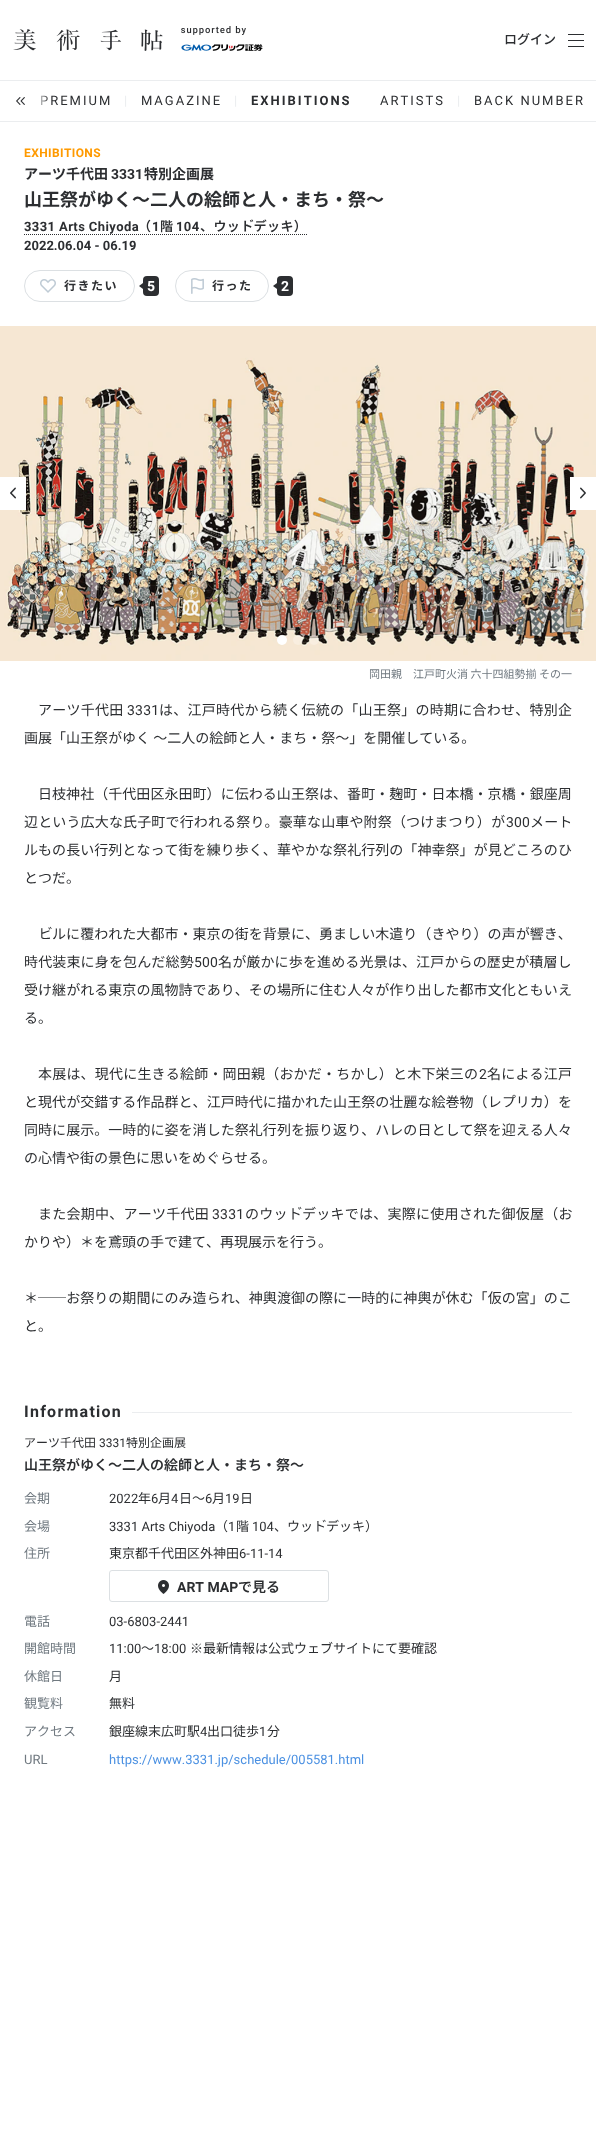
async function draw(canvas) {
  canvas.width = 596
  canvas.height = 2137
  const ctx = canvas.getContext('2d')
  ctx.miterLimit = 4
  ctx.fontKerning = 'none'
  async function loadImage(src) {
    const img = new Image()
    img.src = src
    await img.decode()
    return img
  }
  let gradient

  ctx.fillStyle = '#fff'
  ctx.fillRect(0, 0, 596, 2137)
  ctx.fillStyle = '#ebedef'
  ctx.fillRect(0, 80, 596, 1)
  ctx.drawImage(await loadImage('image0.png'), 13, 29, 150, 22)
  ctx.drawImage(await loadImage('image1.png'), 181, 26, 65, 9)
  ctx.drawImage(await loadImage('image2.png'), 181, 44, 82, 7)
  ctx.font = '500 13px Noto Sans JP'
  ctx.fillStyle = '#2c2e31'
  ctx.fillText('ログイン', 504, 44)
  ctx.fillRect(568, 34, 16, 1)
  ctx.fillRect(568, 40, 16, 1)
  ctx.fillRect(568, 46, 16, 1)
  ctx.fillStyle = '#ebedef'
  ctx.fillRect(0, 121, 596, 1)
  ctx.letterSpacing = '2px'
  ctx.font = '13px Roboto'
  ctx.fillStyle = '#2c2e31'
  ctx.fillText('PREMIUM', 40, 105)
  gradient = ctx.createLinearGradient(50, 101, 0, 101)
  gradient.addColorStop(0, '#ffffff00')
  gradient.addColorStop(0.3, '#fff')
  ctx.fillStyle = gradient
  ctx.fillRect(41, 95, 7, 10)
  ctx.drawImage(await loadImage('image3.png'), 16, 97, 9, 8)
  ctx.fillStyle = '#ebedef'
  ctx.fillText('|', 124, 105)
  ctx.fillStyle = '#2c2e31'
  ctx.fillText('MAGAZINE', 141, 105)
  ctx.fillStyle = '#ebedef'
  ctx.fillText('|', 234, 105)
  ctx.font = 'bold 13px Roboto'
  ctx.fillStyle = '#2c2e31'
  ctx.fillText('EXHIBITIONS', 251, 105)
  ctx.font = '13px Roboto'
  ctx.fillText('ARTISTS', 380, 105)
  ctx.fillStyle = '#ebedef'
  ctx.fillText('|', 457, 105)
  ctx.fillStyle = '#2c2e31'
  ctx.fillText('BACK NUMBER', 474, 105)
  ctx.letterSpacing = '0.4px'
  ctx.font = 'bold 12px Roboto'
  ctx.fillStyle = '#ff9a00'
  ctx.fillText('EXHIBITIONS', 24, 157)
  ctx.letterSpacing = '0px'
  ctx.font = 'bold 14px Noto Sans JP'
  ctx.fillStyle = '#2c2e31'
  ctx.fillText('アーツ千代田', 24, 179)
  ctx.font = 'bold 14px Roboto'
  ctx.fillText('3331', 111, 179)
  ctx.font = 'bold 14px Noto Sans JP'
  ctx.fillText('特別企画展', 144, 179)
  ctx.font = 'bold 18px Noto Sans JP'
  ctx.fillText('山王祭がゆく～二人の絵師と人・まち・祭～', 24, 206)
  ctx.letterSpacing = '0.4px'
  ctx.font = 'bold 13px Roboto'
  ctx.fillText('3331 Arts Chiyoda', 24, 231)
  ctx.beginPath()
  ctx.moveTo(24, 234.5)
  ctx.lineTo(308, 234.5)
  ctx.strokeStyle = '#2c2e31'
  ctx.setLineDash([1, 1])
  ctx.stroke()
  ctx.font = '600 13px Noto Sans JP'
  ctx.fillText('（', 138, 231)
  ctx.font = 'bold 13px Roboto'
  ctx.fillText('1', 152, 231)
  ctx.font = '600 13px Noto Sans JP'
  ctx.fillText('階', 160, 231)
  ctx.font = 'bold 13px Roboto'
  ctx.fillText('104', 176, 231)
  ctx.font = '600 13px Noto Sans JP'
  ctx.fillText('、ウッドデッキ）', 200, 231)
  ctx.letterSpacing = '0px'
  ctx.font = 'bold 13px Roboto'
  ctx.fillText('2022.06.04 - 06.19', 24, 250)
  ctx.beginPath()
  ctx.roundRect(24.5, 270.5, 110, 31, 15.5)
  ctx.strokeStyle = '#dce0e3'
  ctx.setLineDash([])
  ctx.stroke()
  ctx.drawImage(await loadImage('image4.png'), 40, 279, 16, 14)
  ctx.letterSpacing = '1.5px'
  ctx.font = 'bold 12px Noto Sans JP'
  ctx.fillText('行きたい', 64, 290)
  ctx.beginPath()
  ctx.roundRect(143, 276, 16, 20, 4)
  ctx.fill()
  ctx.beginPath()
  ctx.moveTo(143, 283)
  ctx.lineTo(143, 289)
  ctx.lineTo(139, 286)
  ctx.closePath()
  ctx.fill()
  ctx.letterSpacing = '0px'
  ctx.font = 'bold 14px Roboto'
  ctx.fillStyle = '#fff'
  ctx.fillText('5', 147, 291)
  ctx.beginPath()
  ctx.roundRect(175.5, 270.5, 93, 31, 15.5)
  ctx.stroke()
  ctx.drawImage(await loadImage('image5.png'), 191, 278, 13, 16)
  ctx.letterSpacing = '1.5px'
  ctx.font = 'bold 12px Noto Sans JP'
  ctx.fillStyle = '#2c2e31'
  ctx.fillText('行った', 212, 290)
  ctx.beginPath()
  ctx.roundRect(277, 276, 16, 20, 4)
  ctx.fill()
  ctx.beginPath()
  ctx.moveTo(277, 283)
  ctx.lineTo(277, 289)
  ctx.lineTo(273, 286)
  ctx.closePath()
  ctx.fill()
  ctx.letterSpacing = '0px'
  ctx.font = 'bold 14px Roboto'
  ctx.fillStyle = '#fff'
  ctx.fillText('2', 281, 291)
  ctx.drawImage(await loadImage('image8.png'), 0, 326, 596, 335)
  ctx.fillRect(0, 477, 26, 33)
  ctx.drawImage(await loadImage('image6.png'), 10, 487, 6, 12)
  ctx.fillRect(570, 477, 26, 33)
  ctx.drawImage(await loadImage('image7.png'), 580, 487, 6, 12)
  ctx.beginPath()
  ctx.arc(282, 640, 5, 0, 2 * Math.PI)
  ctx.fill()
  ctx.fillStyle = '#ffffff4d'
  ctx.beginPath()
  ctx.arc(298, 640, 5, 0, 2 * Math.PI)
  ctx.fill()
  ctx.beginPath()
  ctx.arc(314, 640, 5, 0, 2 * Math.PI)
  ctx.fill()
  ctx.font = '11px Noto Sans JP'
  ctx.fillStyle = '#707980'
  ctx.fillText('岡田親　江戸町火消 六十四組勢揃 その一', 369, 678)
  ctx.letterSpacing = '0.25px'
  ctx.font = '14px Noto Sans JP'
  ctx.fillStyle = '#2c2e31'
  ctx.fillText('アーツ千代田', 38, 715)
  ctx.font = '14px Roboto'
  ctx.fillText('3331', 127, 715)
  ctx.font = '14px Noto Sans JP'
  ctx.fillText('は、江戸時代から続く伝統の「山王祭」の時期に合わせ、特別企', 159, 715)
  ctx.letterSpacing = '0px'
  ctx.fillText('画展「山王祭がゆく 〜二人の絵師と人・まち・祭〜」を開催している。', 24, 743)
  ctx.letterSpacing = '0.05px'
  ctx.fillText('日枝神社（千代田区永田町）に伝わる山王祭は、番町・麹町・日本橋・京橋・銀座周', 38, 799)
  ctx.letterSpacing = '0.15px'
  ctx.fillText('辺という広大な氏子町で行われる祭り。豪華な山車や附祭（つけまつり）が', 24, 827)
  ctx.font = '14px Roboto'
  ctx.fillText('300', 506, 827)
  ctx.font = '14px Noto Sans JP'
  ctx.fillText('メート', 530, 827)
  ctx.letterSpacing = '0.05px'
  ctx.fillText('ルもの長い行列となって街を練り歩く、華やかな祭礼行列の「神幸祭」が見どころのひ', 24, 855)
  ctx.letterSpacing = '0px'
  ctx.fillText('とつだ。', 24, 883)
  ctx.letterSpacing = '0.05px'
  ctx.fillText('ビルに覆われた大都市・東京の街を背景に、勇ましい木遣り（きやり）の声が響き、', 38, 939)
  ctx.letterSpacing = '0.15px'
  ctx.fillText('時代装束に身を包んだ総勢', 24, 967)
  ctx.font = '14px Roboto'
  ctx.fillText('500', 194, 967)
  ctx.font = '14px Noto Sans JP'
  ctx.fillText('名が厳かに歩を進める光景は、江戸からの歴史が積層し', 218, 967)
  ctx.letterSpacing = '0.05px'
  ctx.fillText('受け継がれる東京の風物詩であり、その場所に住む人々が作り出した都市文化ともいえ', 24, 995)
  ctx.letterSpacing = '0px'
  ctx.fillText('る。', 24, 1023)
  ctx.letterSpacing = '0.2px'
  ctx.fillText('本展は、現代に生きる絵師・岡田親（おかだ・ちかし）と木下栄三の', 38, 1079)
  ctx.font = '14px Roboto'
  ctx.fillText('2', 479, 1079)
  ctx.font = '14px Noto Sans JP'
  ctx.fillText('名による江戸', 487, 1079)
  ctx.letterSpacing = '0.05px'
  ctx.fillText('と現代が交錯する作品群と、江戸時代に描かれた山王祭の壮麗な絵巻物（レプリカ）を', 24, 1107)
  ctx.fillText('同時に展示。一時的に姿を消した祭礼行列を振り返り、ハレの日として祭を迎える人々', 24, 1135)
  ctx.letterSpacing = '0px'
  ctx.fillText('の心情や街の景色に思いをめぐらせる。', 24, 1163)
  ctx.letterSpacing = '0.25px'
  ctx.fillText('また会期中、アーツ千代田', 38, 1219)
  ctx.font = '14px Roboto'
  ctx.fillText('3331', 212, 1219)
  ctx.font = '14px Noto Sans JP'
  ctx.fillText('のウッドデッキでは、実際に使用された御仮屋（お', 245, 1219)
  ctx.letterSpacing = '0px'
  ctx.fillText('かりや）＊を鳶頭の手で建て、再現展示を行う。', 24, 1247)
  ctx.letterSpacing = '0.05px'
  ctx.fillText('＊──お祭りの期間にのみ造られ、神輿渡御の際に一時的に神輿が休む「仮の宮」のこ', 24, 1303)
  ctx.letterSpacing = '0px'
  ctx.fillText('と。', 24, 1331)
  ctx.letterSpacing = '1.25px'
  ctx.font = 'bold 16px Roboto'
  ctx.fillText('Information', 24, 1417)
  ctx.fillStyle = '#ebedef'
  ctx.fillRect(132, 1412, 440, 1)
  ctx.letterSpacing = '0px'
  ctx.font = '12px Noto Sans JP'
  ctx.fillStyle = '#2c2e31'
  ctx.fillText('アーツ千代田', 24, 1447)
  ctx.font = '12px Roboto'
  ctx.fillText('3331', 99, 1447)
  ctx.font = '12px Noto Sans JP'
  ctx.fillText('特別企画展', 126, 1447)
  ctx.font = '600 14px Noto Sans JP'
  ctx.fillText('山王祭がゆく～二人の絵師と人・まち・祭～', 24, 1470)
  ctx.font = '13px Noto Sans JP'
  ctx.fillStyle = '#707980'
  ctx.fillText('会期', 24, 1503)
  ctx.font = '13px Roboto'
  ctx.fillStyle = '#2c2e31'
  ctx.fillText('2022', 109, 1503)
  ctx.font = '13px Noto Sans JP'
  ctx.fillText('年', 138, 1503)
  ctx.font = '13px Roboto'
  ctx.fillText('6', 151, 1503)
  ctx.font = '13px Noto Sans JP'
  ctx.fillText('月', 158, 1503)
  ctx.font = '13px Roboto'
  ctx.fillText('4', 171, 1503)
  ctx.font = '13px Noto Sans JP'
  ctx.fillText('日～', 179, 1503)
  ctx.font = '13px Roboto'
  ctx.fillText('6', 205, 1503)
  ctx.font = '13px Noto Sans JP'
  ctx.fillText('月', 212, 1503)
  ctx.font = '13px Roboto'
  ctx.fillText('19', 225, 1503)
  ctx.font = '13px Noto Sans JP'
  ctx.fillText('日', 240, 1503)
  ctx.fillStyle = '#707980'
  ctx.fillText('会場', 24, 1531)
  ctx.font = '13px Roboto'
  ctx.fillStyle = '#2c2e31'
  ctx.fillText('3331 Arts Chiyoda', 109, 1531)
  ctx.font = '13px Noto Sans JP'
  ctx.fillText('（', 215, 1531)
  ctx.font = '13px Roboto'
  ctx.fillText('1', 228, 1531)
  ctx.font = '13px Noto Sans JP'
  ctx.fillText('階', 236, 1531)
  ctx.font = '13px Roboto'
  ctx.fillText('104', 252, 1531)
  ctx.font = '13px Noto Sans JP'
  ctx.fillText('、ウッドデッキ）', 274, 1531)
  ctx.fillStyle = '#707980'
  ctx.fillText('住所', 24, 1558)
  ctx.fillStyle = '#2c2e31'
  ctx.fillText('東京都千代田区外神田', 109, 1558)
  ctx.font = '13px Roboto'
  ctx.fillText('6-11-14', 239, 1558)
  ctx.beginPath()
  ctx.roundRect(109.5, 1570.5, 219, 31, 2.5)
  ctx.stroke()
  ctx.drawImage(await loadImage('image9.png'), 158, 1580, 11, 14)
  ctx.font = 'bold 14px Roboto'
  ctx.fillText('ART MAP', 177, 1592)
  ctx.font = '600 14px Noto Sans JP'
  ctx.fillText('で見る', 238, 1592)
  ctx.font = '13px Noto Sans JP'
  ctx.fillStyle = '#707980'
  ctx.fillText('電話', 24, 1626)
  ctx.font = '13px Roboto'
  ctx.fillStyle = '#2c2e31'
  ctx.fillText('03-6803-2441', 109, 1626)
  ctx.font = '13px Noto Sans JP'
  ctx.fillStyle = '#707980'
  ctx.fillText('開館時間', 24, 1653)
  ctx.font = '13px Roboto'
  ctx.fillStyle = '#2c2e31'
  ctx.fillText('11:00', 109, 1653)
  ctx.font = '13px Noto Sans JP'
  ctx.fillText('～', 141, 1653)
  ctx.font = '13px Roboto'
  ctx.fillText('18:00', 154, 1653)
  ctx.font = '13px Noto Sans JP'
  ctx.fillText('※最新情報は公式ウェブサイトにて要確認', 190, 1653)
  ctx.fillStyle = '#707980'
  ctx.fillText('休館日', 24, 1681)
  ctx.fillStyle = '#2c2e31'
  ctx.fillText('月', 109, 1681)
  ctx.fillStyle = '#707980'
  ctx.fillText('観覧料', 24, 1708)
  ctx.fillStyle = '#2c2e31'
  ctx.fillText('無料', 109, 1708)
  ctx.fillStyle = '#707980'
  ctx.fillText('アクセス', 24, 1736)
  ctx.fillStyle = '#2c2e31'
  ctx.fillText('銀座線末広町駅', 109, 1736)
  ctx.font = '13px Roboto'
  ctx.fillText('4', 200, 1736)
  ctx.font = '13px Noto Sans JP'
  ctx.fillText('出口徒歩', 207, 1736)
  ctx.font = '13px Roboto'
  ctx.fillText('1', 259, 1736)
  ctx.font = '13px Noto Sans JP'
  ctx.fillText('分', 267, 1736)
  ctx.font = '13px Roboto'
  ctx.fillStyle = '#707980'
  ctx.fillText('URL', 24, 1764)
  ctx.fillStyle = '#4a90e2'
  ctx.fillText('https://www.3331.jp/schedule/005581.html', 109, 1764)
}

draw(document.querySelector('canvas'))
